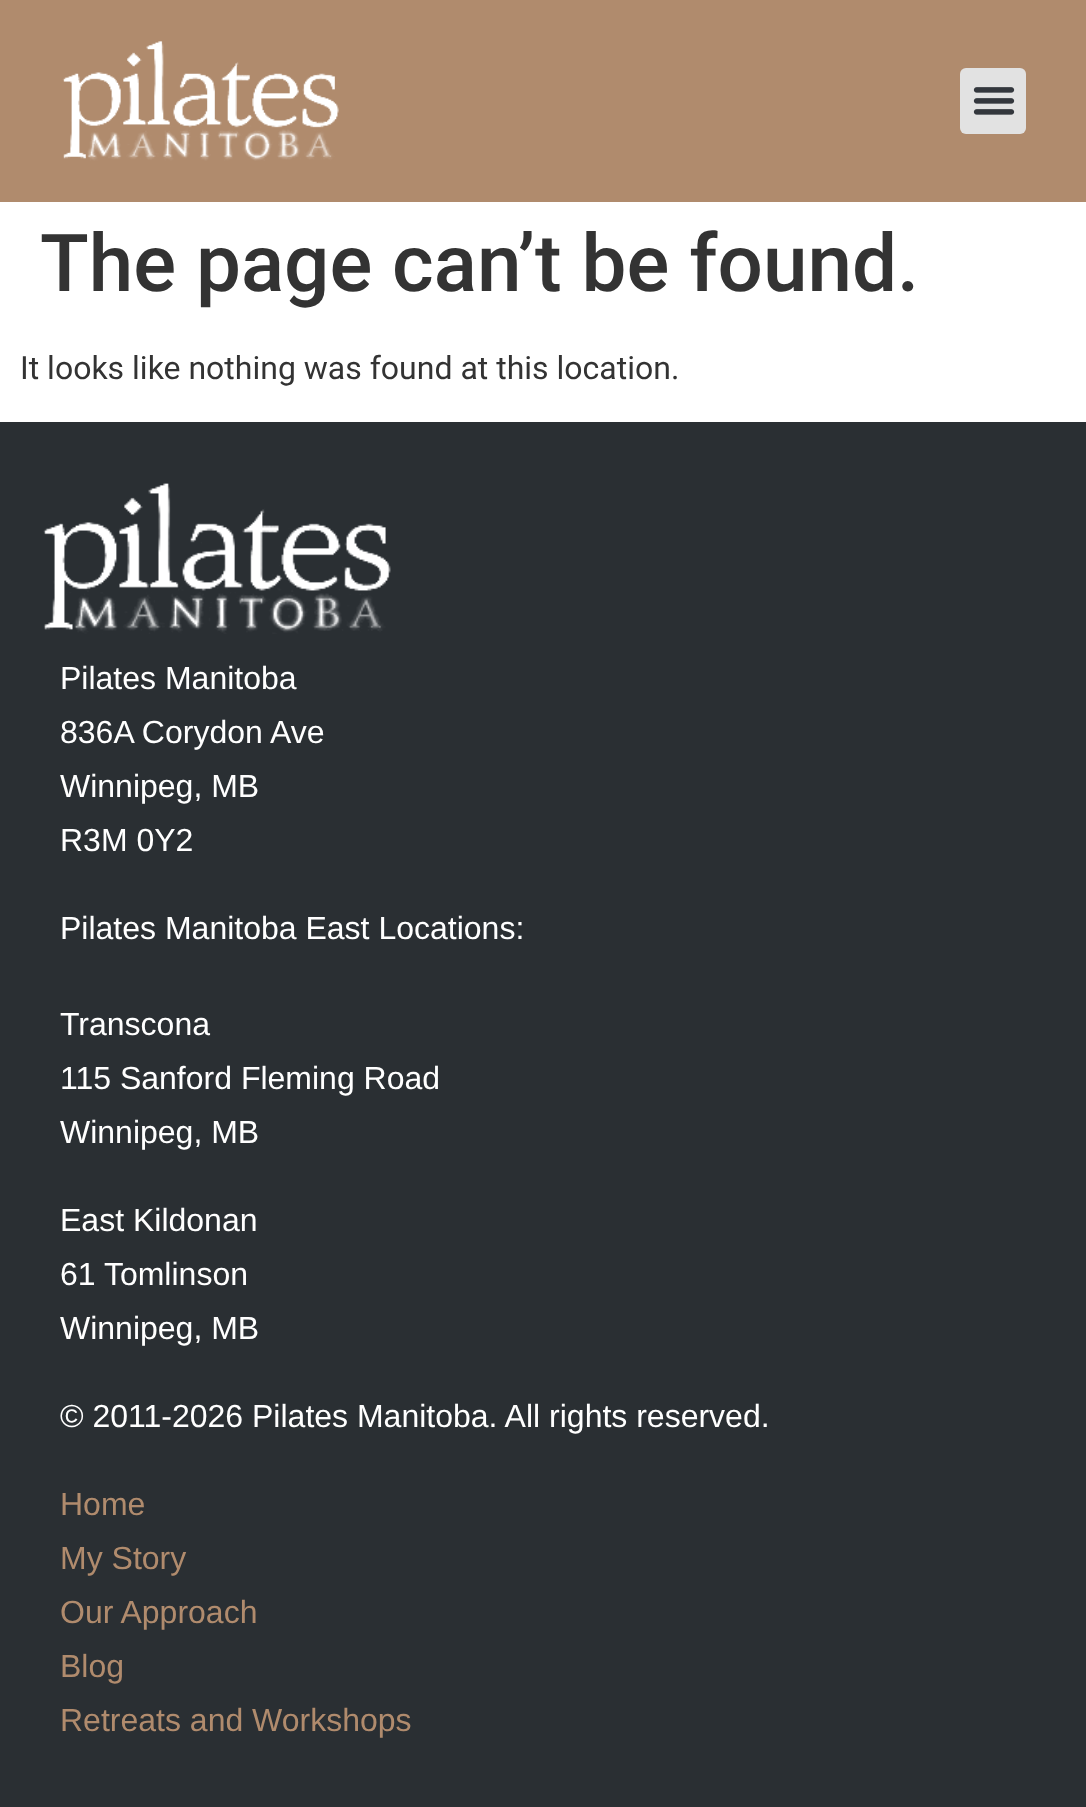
async function draw(canvas) {
  canvas.width = 1086
  canvas.height = 1807
  const ctx = canvas.getContext('2d')
  ctx.miterLimit = 4
  ctx.fontKerning = 'normal'
  async function loadImage(src) {
    const img = new Image()
    img.src = src
    await img.decode()
    return img
  }

  ctx.fillStyle = '#fff'
  ctx.fillRect(0, 0, 1086, 1807)
  ctx.fillStyle = '#b08b6d'
  ctx.fillRect(0, 0, 1086, 202)
  ctx.drawImage(await loadImage('image0.png'), 62, 41, 277, 120)
  ctx.fillStyle = '#e2e2e2'
  ctx.beginPath()
  ctx.roundRect(960, 68, 66, 66, 6)
  ctx.fill()
  ctx.drawImage(await loadImage('image1.png'), 973, 87, 42, 28)
  ctx.font = '500 80px Roboto'
  ctx.fillStyle = '#333'
  ctx.fillText('The page can’t be found.', 40, 291)
  ctx.font = '32px Roboto'
  ctx.fillText('It looks like nothing was found at this location.', 20, 379)
  ctx.fillStyle = '#2a2f33'
  ctx.fillRect(0, 422, 1086, 1385)
  ctx.drawImage(await loadImage('image2.png'), 43, 483, 348, 151)
  ctx.font = '32px Liberation Sans'
  ctx.fillStyle = '#fff'
  ctx.fillText('Pilates Manitoba', 60, 689)
  ctx.fillText('836A Corydon Ave', 60, 743)
  ctx.fillText('Winnipeg, MB', 60, 797)
  ctx.fillText('R3M 0Y2', 60, 851)
  ctx.fillText('Pilates Manitoba East Locations:', 60, 939)
  ctx.fillText('Transcona', 60, 1035)
  ctx.fillText('115 Sanford Fleming Road', 60, 1089)
  ctx.fillText('Winnipeg, MB', 60, 1143)
  ctx.fillText('East Kildonan', 60, 1231)
  ctx.fillText('61 Tomlinson', 60, 1285)
  ctx.fillText('Winnipeg, MB', 60, 1339)
  ctx.fillText('© 2011-2026 Pilates Manitoba. All rights reserved.', 60, 1427)
  ctx.fillStyle = '#b08b6d'
  ctx.fillText('Home', 60, 1515)
  ctx.fillText('My Story', 60, 1569)
  ctx.fillText('Our Approach', 60, 1623)
  ctx.fillText('Blog', 60, 1677)
  ctx.fillText('Retreats and Workshops', 60, 1731)
}

draw(document.querySelector('canvas'))
